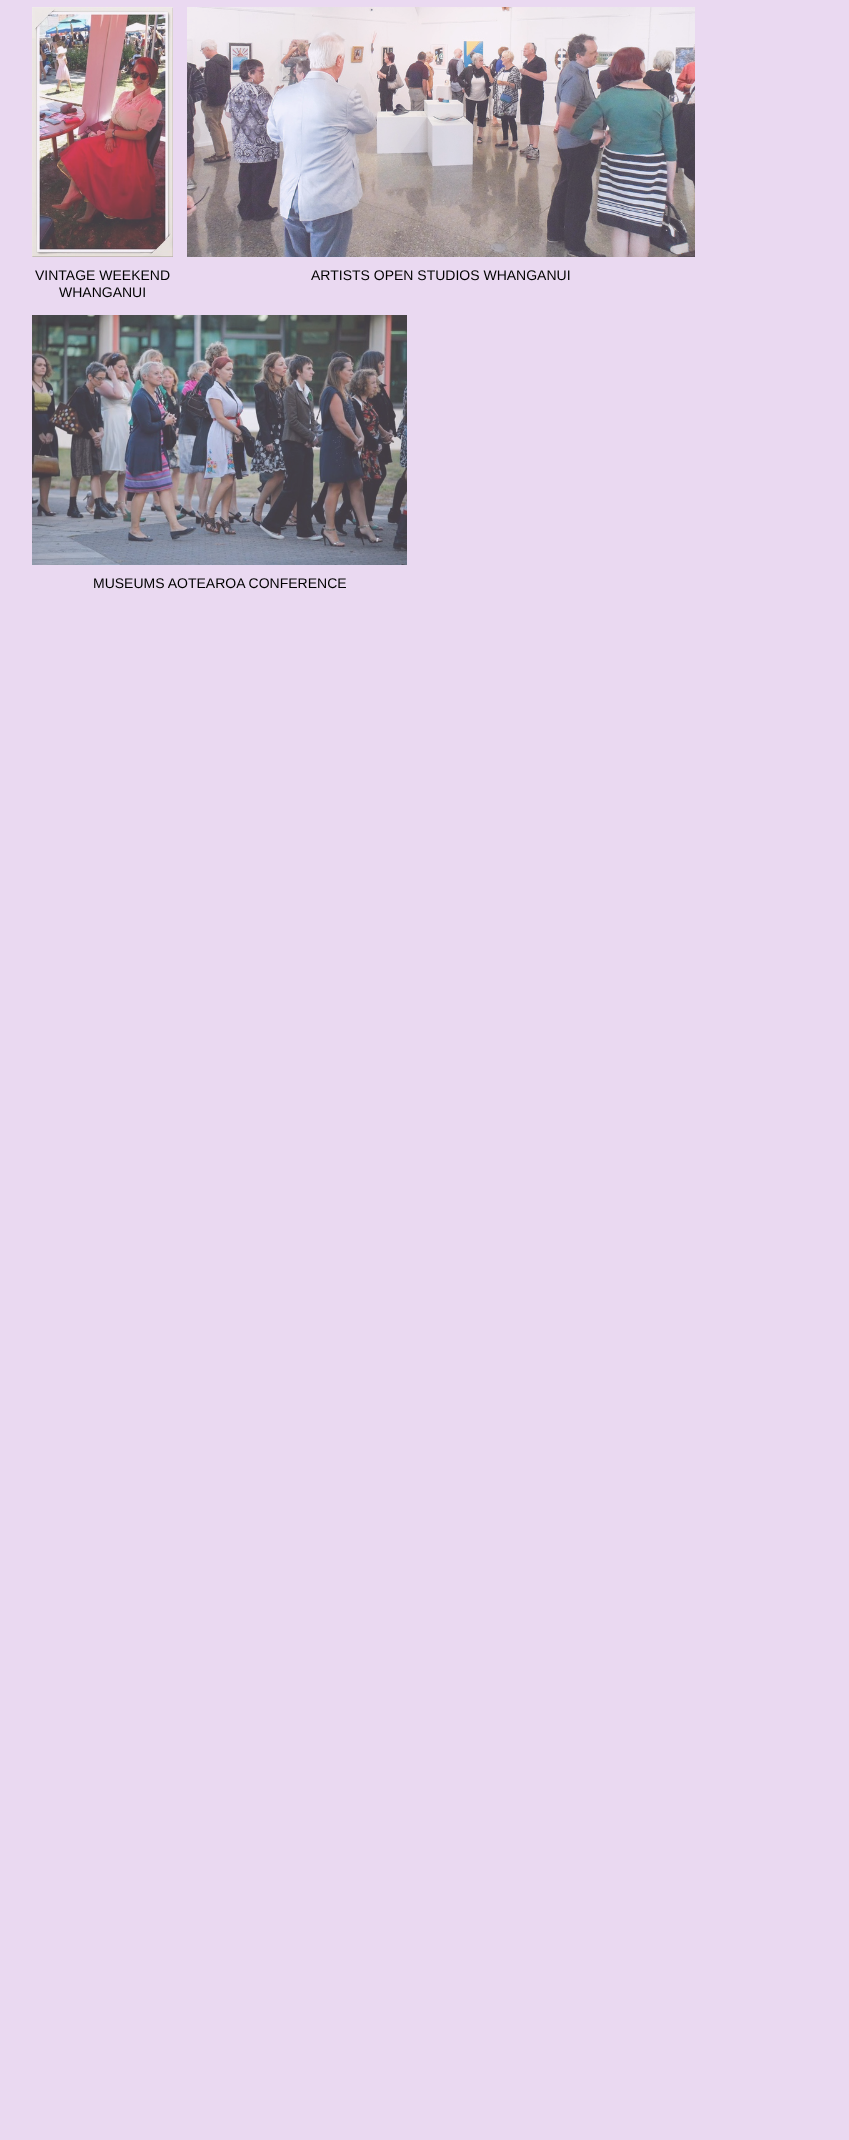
async function draw(canvas) {
  canvas.width = 849
  canvas.height = 2140
  const ctx = canvas.getContext('2d')
  ctx.miterLimit = 4
  ctx.fontKerning = 'normal'
  async function loadImage(src) {
    const img = new Image()
    img.src = src
    await img.decode()
    return img
  }

  ctx.fillStyle = '#ead9f1'
  ctx.fillRect(0, 0, 849, 2140)
  ctx.drawImage(await loadImage('image0.png'), 32, 7, 141, 250)
  ctx.font = '14px Arimo'
  ctx.fillStyle = '#000'
  ctx.fillText('VINTAGE WEEKEND', 35, 280)
  ctx.fillText('WHANGANUI', 59, 297)
  ctx.drawImage(await loadImage('image1.png'), 187, 7, 508, 250)
  ctx.fillText('ARTISTS OPEN STUDIOS WHANGANUI', 311, 280)
  ctx.drawImage(await loadImage('image2.png'), 32, 315, 375, 250)
  ctx.fillText('MUSEUMS AOTEAROA CONFERENCE', 93, 588)
}

draw(document.querySelector('canvas'))
